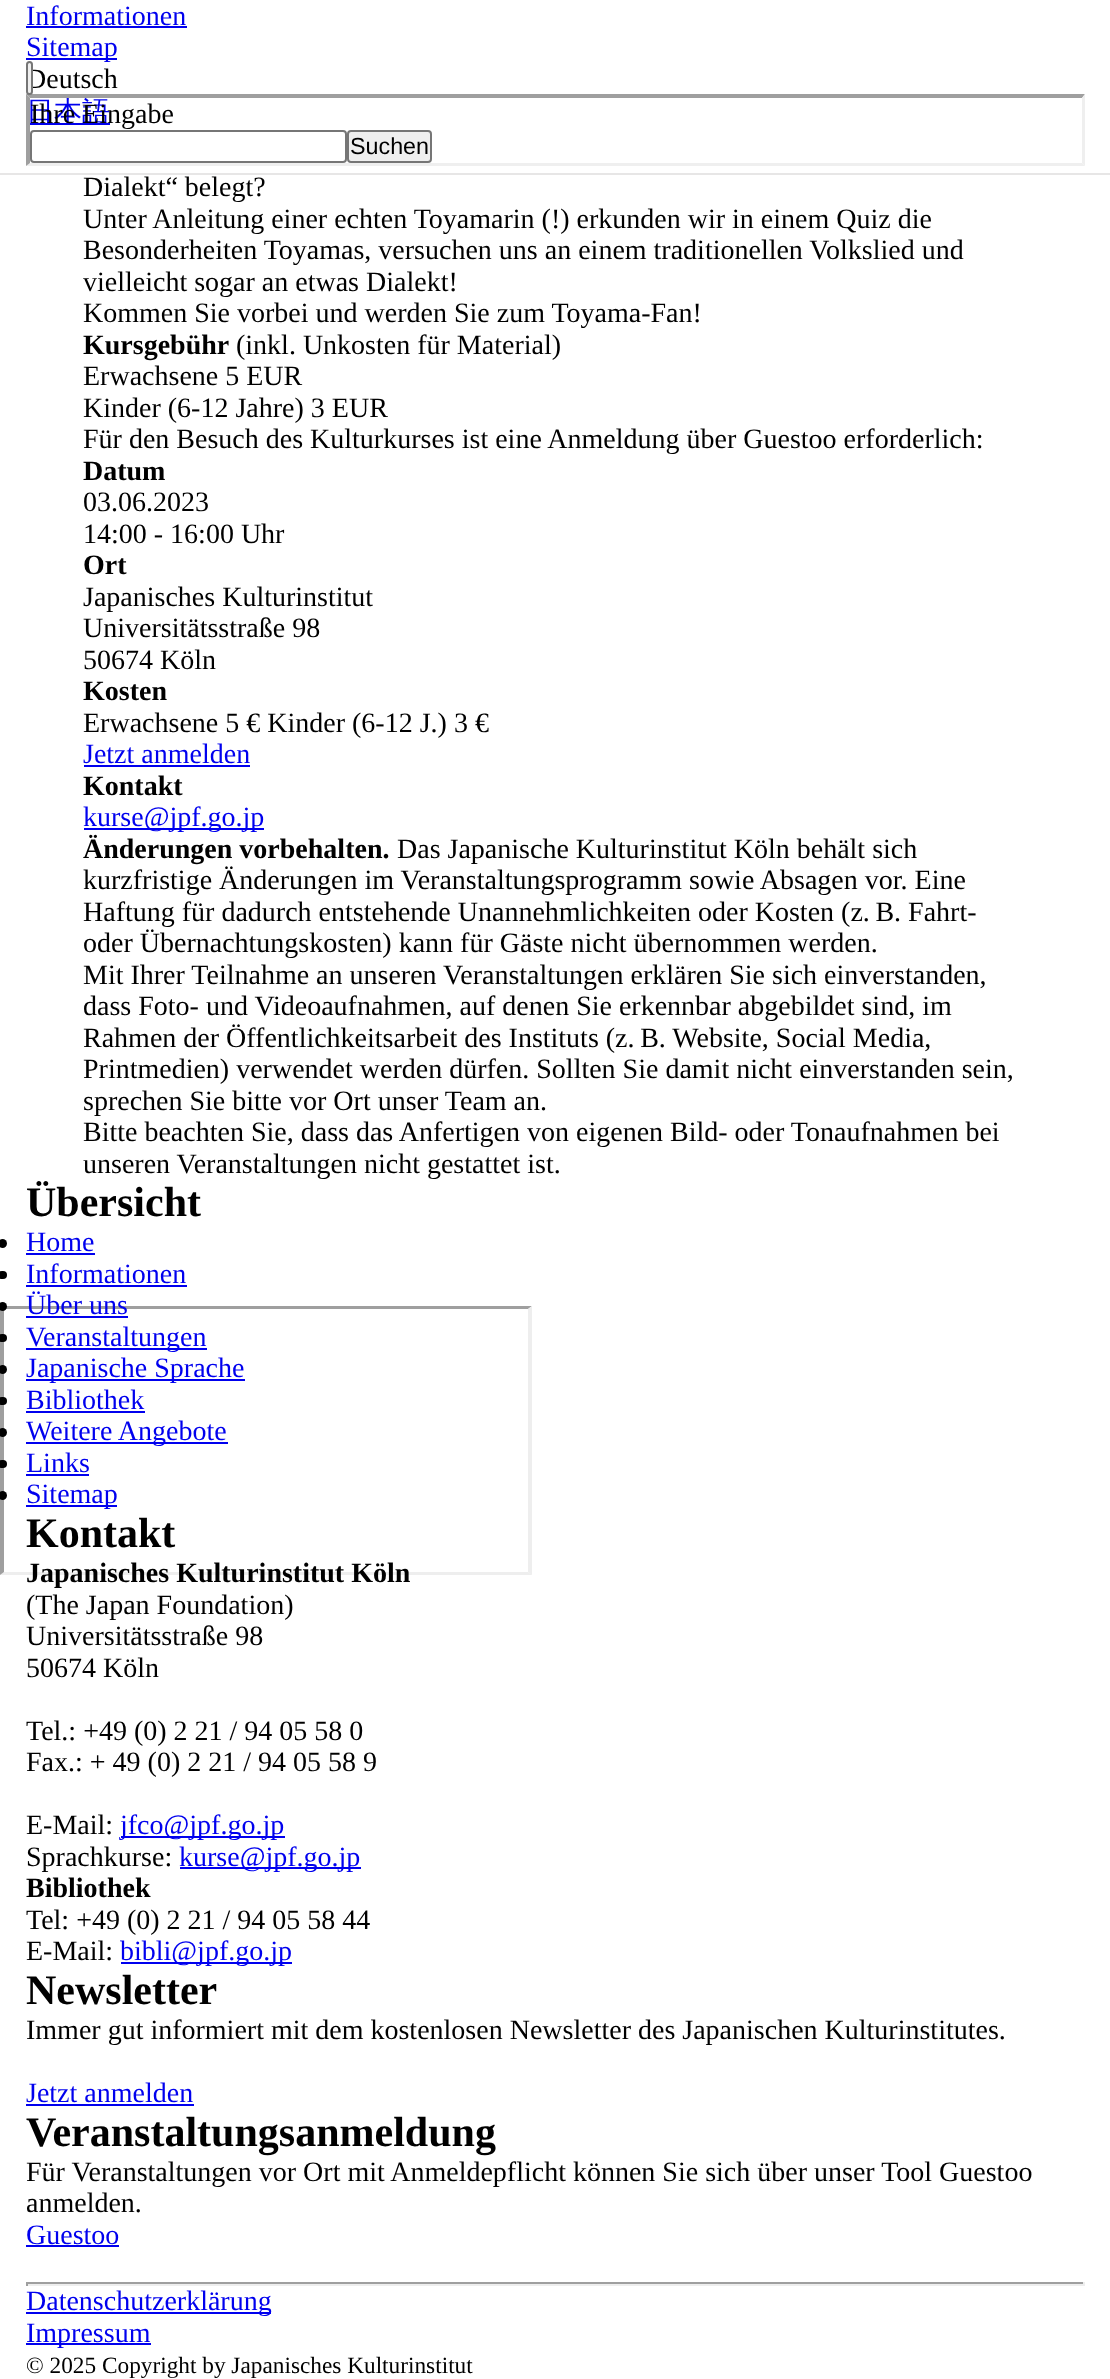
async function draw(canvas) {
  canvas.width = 1110
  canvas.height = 2379
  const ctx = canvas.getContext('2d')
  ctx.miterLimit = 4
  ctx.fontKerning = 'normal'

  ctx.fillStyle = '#fff'
  ctx.fillRect(0, 0, 1110, 2379)
  ctx.fillStyle = '#e7e6e6'
  ctx.fillRect(0, 173, 1110, 2)
  ctx.font = '28px Liberation Serif'
  ctx.fillStyle = '#00e'
  ctx.fillText('Informationen', 26, 25)
  ctx.fillRect(26, 26, 161, 2)
  ctx.fillRect(26, 58, 91, 2)
  ctx.fillText('Sitemap', 26, 56)
  ctx.fillStyle = '#000'
  ctx.fillText('Deutsch', 26, 88)
  ctx.fillStyle = '#00e'
  ctx.fillRect(26, 123, 84, 2)
  ctx.font = '500 28px WenQuanYi Zen Hei'
  ctx.fillText('日本語', 26, 121)
  ctx.fillStyle = '#9f9f9f'
  ctx.beginPath()
  ctx.moveTo(26, 94)
  ctx.lineTo(1085, 94)
  ctx.lineTo(1082, 98)
  ctx.lineTo(30, 98)
  ctx.closePath()
  ctx.fill()
  ctx.fillStyle = '#efefef'
  ctx.beginPath()
  ctx.moveTo(1085, 94)
  ctx.lineTo(1085, 166)
  ctx.lineTo(1082, 163)
  ctx.lineTo(1082, 98)
  ctx.closePath()
  ctx.fill()
  ctx.beginPath()
  ctx.moveTo(1085, 166)
  ctx.lineTo(26, 166)
  ctx.lineTo(30, 163)
  ctx.lineTo(1082, 163)
  ctx.closePath()
  ctx.fill()
  ctx.fillStyle = '#9f9f9f'
  ctx.beginPath()
  ctx.moveTo(26, 166)
  ctx.lineTo(26, 94)
  ctx.lineTo(30, 98)
  ctx.lineTo(30, 163)
  ctx.closePath()
  ctx.fill()
  ctx.fillStyle = '#efefef'
  ctx.beginPath()
  ctx.roundRect(27, 62, 5, 32, 2.5)
  ctx.fill()
  ctx.strokeStyle = '#767676'
  ctx.lineWidth = 2
  ctx.stroke()
  ctx.font = '28px Liberation Serif'
  ctx.fillStyle = '#000'
  ctx.fillText('Ihre Eingabe', 30, 123)
  ctx.beginPath()
  ctx.roundRect(31, 131, 315, 31, 3)
  ctx.stroke()
  ctx.fillStyle = '#efefef'
  ctx.beginPath()
  ctx.roundRect(348, 131, 83, 31, 3)
  ctx.fill()
  ctx.stroke()
  ctx.font = '23.3px Liberation Sans'
  ctx.fillStyle = '#000'
  ctx.fillText('Suchen', 350, 154)
  ctx.font = '28px Liberation Serif'
  ctx.fillText('Dialekt“ belegt?', 83, 196)
  ctx.fillText('Unter Anleitung einer echten Toyamarin (!) erkunden wir in einem Quiz die', 83, 228)
  ctx.fillText('Besonderheiten Toyamas, versuchen uns an einem traditionellen Volkslied und', 83, 259)
  ctx.fillText('vielleicht sogar an etwas Dialekt!', 83, 291)
  ctx.fillText('Kommen Sie vorbei und werden Sie zum Toyama-Fan!', 83, 322)
  ctx.font = 'bold 28px Liberation Serif'
  ctx.fillText('Kursgebühr', 83, 354)
  ctx.font = '28px Liberation Serif'
  ctx.fillText('(inkl. Unkosten für Material)', 236, 354)
  ctx.fillText('Erwachsene 5 EUR', 83, 385)
  ctx.fillText('Kinder (6-12 Jahre) 3 EUR', 83, 417)
  ctx.fillText('Für den Besuch des Kulturkurses ist eine Anmeldung über Guestoo erforderlich:', 83, 448)
  ctx.font = 'bold 28px Liberation Serif'
  ctx.fillText('Datum', 83, 480)
  ctx.font = '28px Liberation Serif'
  ctx.fillText('03.06.2023', 83, 511)
  ctx.fillText('14:00 - 16:00 Uhr', 83, 543)
  ctx.font = 'bold 28px Liberation Serif'
  ctx.fillText('Ort', 83, 574)
  ctx.font = '28px Liberation Serif'
  ctx.fillText('Japanisches Kulturinstitut', 83, 606)
  ctx.fillText('Universitätsstraße 98', 83, 637)
  ctx.fillText('50674 Köln', 83, 669)
  ctx.font = 'bold 28px Liberation Serif'
  ctx.fillText('Kosten', 83, 700)
  ctx.font = '28px Liberation Serif'
  ctx.fillText('Erwachsene 5 € Kinder (6-12 J.) 3 €', 83, 732)
  ctx.fillStyle = '#00e'
  ctx.fillText('Jetzt anmelden', 83, 763)
  ctx.fillRect(84, 765, 166, 2)
  ctx.font = 'bold 28px Liberation Serif'
  ctx.fillStyle = '#000'
  ctx.fillText('Kontakt', 83, 795)
  ctx.fillStyle = '#00e'
  ctx.fillRect(84, 828, 180, 2)
  ctx.font = '28px Liberation Serif'
  ctx.fillText('kurse@jpf.go.jp', 83, 826)
  ctx.font = 'bold 28px Liberation Serif'
  ctx.fillStyle = '#000'
  ctx.fillText('Änderungen vorbehalten.', 83, 858)
  ctx.font = '28px Liberation Serif'
  ctx.fillText('Das Japanische Kulturinstitut Köln behält sich', 397, 858)
  ctx.fillText('kurzfristige Änderungen im Veranstaltungsprogramm sowie Absagen vor. Eine', 83, 889)
  ctx.fillText('Haftung für dadurch entstehende Unannehmlichkeiten oder Kosten (z. B. Fahrt-', 83, 921)
  ctx.fillText('oder Übernachtungskosten) kann für Gäste nicht übernommen werden.', 83, 952)
  ctx.fillText('Mit Ihrer Teilnahme an unseren Veranstaltungen erklären Sie sich einverstanden,', 83, 984)
  ctx.fillText('dass Foto- und Videoaufnahmen, auf denen Sie erkennbar abgebildet sind, im', 83, 1015)
  ctx.fillText('Rahmen der Öffentlichkeitsarbeit des Instituts (z. B. Website, Social Media,', 83, 1047)
  ctx.fillText('Printmedien) verwendet werden dürfen. Sollten Sie damit nicht einverstanden sein,', 83, 1078)
  ctx.fillText('sprechen Sie bitte vor Ort unser Team an.', 83, 1110)
  ctx.fillText('Bitte beachten Sie, dass das Anfertigen von eigenen Bild- oder Tonaufnahmen bei', 83, 1141)
  ctx.fillText('unseren Veranstaltungen nicht gestattet ist.', 83, 1173)
  ctx.font = 'bold 42px Liberation Serif'
  ctx.fillText('Übersicht', 26, 1216)
  ctx.beginPath()
  ctx.arc(2.5, 1243.5, 4.5, 0, 2 * Math.PI)
  ctx.fill()
  ctx.font = '28px Liberation Serif'
  ctx.fillStyle = '#00e'
  ctx.fillText('Home', 26, 1251)
  ctx.fillRect(26, 1253, 69, 2)
  ctx.fillStyle = '#000'
  ctx.beginPath()
  ctx.roundRect(-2, 1271, 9, 8, 4)
  ctx.fill()
  ctx.fillStyle = '#00e'
  ctx.fillText('Informationen', 26, 1283)
  ctx.fillRect(26, 1285, 161, 2)
  ctx.fillStyle = '#9f9f9f'
  ctx.beginPath()
  ctx.moveTo(0, 1306)
  ctx.lineTo(532, 1306)
  ctx.lineTo(528, 1309)
  ctx.lineTo(4, 1309)
  ctx.closePath()
  ctx.fill()
  ctx.fillStyle = '#eee'
  ctx.beginPath()
  ctx.moveTo(532, 1306)
  ctx.lineTo(532, 1575)
  ctx.lineTo(528, 1572)
  ctx.lineTo(528, 1309)
  ctx.closePath()
  ctx.fill()
  ctx.beginPath()
  ctx.moveTo(532, 1575)
  ctx.lineTo(0, 1575)
  ctx.lineTo(4, 1572)
  ctx.lineTo(528, 1572)
  ctx.closePath()
  ctx.fill()
  ctx.fillStyle = '#9f9f9f'
  ctx.beginPath()
  ctx.moveTo(0, 1575)
  ctx.lineTo(0, 1306)
  ctx.lineTo(4, 1309)
  ctx.lineTo(4, 1572)
  ctx.closePath()
  ctx.fill()
  ctx.fillStyle = '#000'
  ctx.beginPath()
  ctx.arc(2.5, 1306.5, 4.5, 0, 2 * Math.PI)
  ctx.fill()
  ctx.fillStyle = '#00e'
  ctx.fillText('Über uns', 26, 1314)
  ctx.fillRect(26, 1316, 102, 2)
  ctx.fillStyle = '#000'
  ctx.beginPath()
  ctx.roundRect(-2, 1334, 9, 8, 4)
  ctx.fill()
  ctx.fillStyle = '#00e'
  ctx.fillRect(26, 1348, 181, 2)
  ctx.fillText('Veranstaltungen', 26, 1346)
  ctx.fillStyle = '#000'
  ctx.beginPath()
  ctx.arc(2.5, 1369.5, 4.5, 0, 2 * Math.PI)
  ctx.fill()
  ctx.fillStyle = '#00e'
  ctx.fillRect(26, 1379, 219, 2)
  ctx.fillText('Japanische Sprache', 26, 1377)
  ctx.fillStyle = '#000'
  ctx.beginPath()
  ctx.roundRect(-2, 1397, 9, 8, 4)
  ctx.fill()
  ctx.fillStyle = '#00e'
  ctx.fillText('Bibliothek', 26, 1409)
  ctx.fillRect(26, 1411, 119, 2)
  ctx.fillStyle = '#000'
  ctx.beginPath()
  ctx.arc(2.5, 1432.5, 4.5, 0, 2 * Math.PI)
  ctx.fill()
  ctx.fillStyle = '#00e'
  ctx.fillRect(26, 1442, 202, 2)
  ctx.fillText('Weitere Angebote', 26, 1440)
  ctx.fillStyle = '#000'
  ctx.beginPath()
  ctx.roundRect(-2, 1460, 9, 8, 4)
  ctx.fill()
  ctx.fillStyle = '#00e'
  ctx.fillText('Links', 26, 1472)
  ctx.fillRect(26, 1474, 63, 2)
  ctx.fillStyle = '#000'
  ctx.beginPath()
  ctx.arc(2.5, 1495.5, 4.5, 0, 2 * Math.PI)
  ctx.fill()
  ctx.fillStyle = '#00e'
  ctx.fillRect(26, 1505, 91, 2)
  ctx.fillText('Sitemap', 26, 1503)
  ctx.font = 'bold 42px Liberation Serif'
  ctx.fillStyle = '#000'
  ctx.fillText('Kontakt', 26, 1547)
  ctx.font = 'bold 28px Liberation Serif'
  ctx.fillText('Japanisches Kulturinstitut Köln', 26, 1582)
  ctx.font = '28px Liberation Serif'
  ctx.fillText('(The Japan Foundation)', 26, 1614)
  ctx.fillText('Universitätsstraße 98', 26, 1645)
  ctx.fillText('50674 Köln', 26, 1677)
  ctx.fillText('Tel.: +49 (0) 2 21 / 94 05 58 0', 26, 1740)
  ctx.fillText('Fax.: + 49 (0) 2 21 / 94 05 58 9', 26, 1771)
  ctx.fillText('E-Mail:', 26, 1834)
  ctx.fillStyle = '#00e'
  ctx.fillRect(121, 1836, 164, 2)
  ctx.fillText('jfco@jpf.go.jp', 120, 1834)
  ctx.fillStyle = '#000'
  ctx.fillText('Sprachkurse:', 26, 1866)
  ctx.fillStyle = '#00e'
  ctx.fillRect(180, 1867, 181, 2)
  ctx.fillText('kurse@jpf.go.jp', 179, 1866)
  ctx.font = 'bold 28px Liberation Serif'
  ctx.fillStyle = '#000'
  ctx.fillText('Bibliothek', 26, 1897)
  ctx.font = '28px Liberation Serif'
  ctx.fillText('Tel: +49 (0) 2 21 / 94 05 58 44', 26, 1929)
  ctx.fillText('E-Mail:', 26, 1960)
  ctx.fillStyle = '#00e'
  ctx.fillRect(121, 1962, 171, 2)
  ctx.fillText('bibli@jpf.go.jp', 120, 1960)
  ctx.font = 'bold 42px Liberation Serif'
  ctx.fillStyle = '#000'
  ctx.fillText('Newsletter', 26, 2004)
  ctx.font = '28px Liberation Serif'
  ctx.fillText('Immer gut informiert mit dem kostenlosen Newsletter des Japanischen Kulturinstitutes.', 26, 2039)
  ctx.fillStyle = '#00e'
  ctx.fillText('Jetzt anmelden', 26, 2102)
  ctx.fillRect(26, 2104, 168, 2)
  ctx.font = 'bold 42px Liberation Serif'
  ctx.fillStyle = '#000'
  ctx.fillText('Veranstaltungsanmeldung', 26, 2146)
  ctx.font = '28px Liberation Serif'
  ctx.fillText('Für Veranstaltungen vor Ort mit Anmeldepflicht können Sie sich über unser Tool Guestoo', 26, 2181)
  ctx.fillText('anmelden.', 26, 2212)
  ctx.fillStyle = '#00e'
  ctx.fillText('Guestoo', 26, 2244)
  ctx.fillRect(26, 2245, 93, 2)
  ctx.fillStyle = '#9f9f9f'
  ctx.fillRect(26, 2282, 1059, 2)
  ctx.fillStyle = '#eee'
  ctx.fillRect(1083, 2282, 2, 4)
  ctx.fillRect(26, 2284, 1059, 2)
  ctx.fillStyle = '#9f9f9f'
  ctx.fillRect(26, 2282, 2, 4)
  ctx.fillStyle = '#00e'
  ctx.fillRect(26, 2312, 245, 2)
  ctx.fillText('Datenschutzerklärung', 26, 2310)
  ctx.fillRect(26, 2343, 125, 2)
  ctx.fillText('Impressum', 26, 2342)
  ctx.font = '23.3px Liberation Serif'
  ctx.fillStyle = '#000'
  ctx.fillText('© 2025 Copyright by Japanisches Kulturinstitut', 26, 2373)
}

draw(document.querySelector('canvas'))
